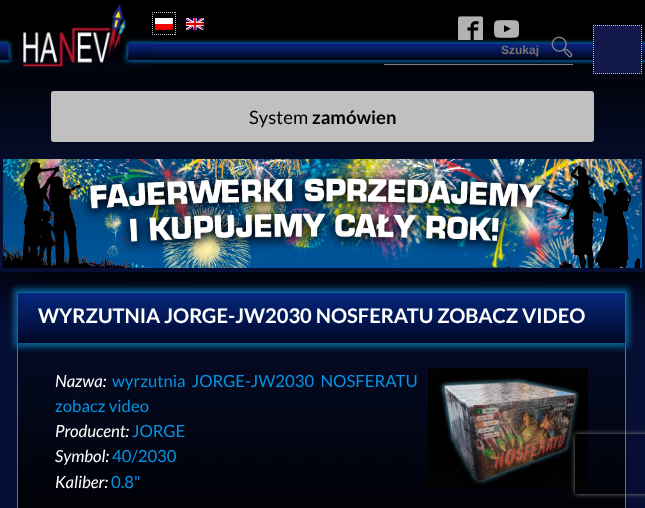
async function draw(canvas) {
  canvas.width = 645
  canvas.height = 508
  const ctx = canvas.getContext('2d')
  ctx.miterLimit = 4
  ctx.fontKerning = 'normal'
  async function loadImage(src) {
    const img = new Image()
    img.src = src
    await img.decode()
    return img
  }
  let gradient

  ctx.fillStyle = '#060e33'
  ctx.fillRect(0, 0, 645, 508)
  ctx.drawImage(await loadImage('image0.png'), 0, 0, 645, 178)
  ctx.drawImage(await loadImage('image1.png'), 3, 0, 150, 70)
  ctx.beginPath()
  ctx.moveTo(152, 12.5)
  ctx.lineTo(176, 12.5)
  ctx.moveTo(175.5, 12)
  ctx.lineTo(175.5, 35)
  ctx.moveTo(152, 34.5)
  ctx.lineTo(176, 34.5)
  ctx.moveTo(152.5, 12)
  ctx.lineTo(152.5, 35)
  ctx.strokeStyle = '#c0c0c0'
  ctx.setLineDash([1, 1])
  ctx.stroke()
  ctx.drawImage(await loadImage('image2.png'), 155, 18, 18, 12)
  ctx.drawImage(await loadImage('image3.png'), 186, 18, 18, 12)
  ctx.drawImage(await loadImage('image4.png'), 458, 16, 25, 24)
  ctx.drawImage(await loadImage('image5.png'), 494, 20, 25, 18)
  ctx.fillStyle = '#13184a'
  ctx.fillRect(593, 25, 49, 49)
  ctx.beginPath()
  ctx.moveTo(593, 25.5)
  ctx.lineTo(642, 25.5)
  ctx.moveTo(641.5, 25)
  ctx.lineTo(641.5, 74)
  ctx.moveTo(593, 73.5)
  ctx.lineTo(642, 73.5)
  ctx.moveTo(593.5, 25)
  ctx.lineTo(593.5, 74)
  ctx.stroke()
  ctx.fillStyle = '#808080'
  ctx.fillRect(384, 64, 189, 1)
  ctx.font = 'bold 12px Liberation Sans'
  ctx.fillStyle = '#757575'
  ctx.fillText('Szukaj', 501, 54)
  ctx.drawImage(await loadImage('image6.png'), 551, 36, 22, 22)
  ctx.fillStyle = '#c0c0c0'
  ctx.beginPath()
  ctx.roundRect(51, 91, 543, 51, 3)
  ctx.fill()
  ctx.font = '18.5px Lato'
  ctx.fillStyle = '#000'
  ctx.fillText('System', 249, 124)
  ctx.font = 'bold 18.5px Lato'
  ctx.fillText('zamówien', 312, 124)
  ctx.drawImage(await loadImage('image7.png'), 3, 159, 639, 109)
  ctx.drawImage(await loadImage('image8.png'), 0, 272, 645, 52)
  ctx.drawImage(await loadImage('image9.png'), 18, 343, 607, 165)
  ctx.strokeStyle = '#0693e3'
  ctx.setLineDash([])
  ctx.strokeRect(17.5, 292.5, 608, 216)
  ctx.fillStyle = '#096397'
  ctx.filter = 'blur(3px)'
  ctx.beginPath()
  ctx.rect(14, 289, 615, 58)
  ctx.fill()
  ctx.filter = 'none'
  gradient = ctx.createLinearGradient(322, 293, 322, 343)
  gradient.addColorStop(0, '#052780')
  gradient.addColorStop(1, '#000828')
  ctx.fillStyle = gradient
  ctx.fillRect(18, 293, 607, 50)
  ctx.font = 'bold 20.15px Lato'
  ctx.fillStyle = '#fff'
  ctx.fillText('WYRZUTNIA JORGE-JW2030 NOSFERATU ZOBACZ VIDEO', 38, 323)
  ctx.font = 'italic 16.75px Lato'
  ctx.fillText('Nazwa:', 55, 387)
  ctx.wordSpacing = '3px'
  ctx.font = '16.75px Lato'
  ctx.fillStyle = '#0693e3'
  ctx.fillText('wyrzutnia JORGE-JW2030 NOSFERATU', 112, 387)
  ctx.drawImage(await loadImage('image10.png'), 428, 368, 160, 120)
  ctx.wordSpacing = '0px'
  ctx.fillText('zobacz video', 55, 412)
  ctx.font = 'italic 16.75px Lato'
  ctx.fillStyle = '#fff'
  ctx.fillText('Producent:', 55, 437)
  ctx.font = '16.75px Lato'
  ctx.fillStyle = '#0693e3'
  ctx.fillText('JORGE', 132, 437)
  ctx.font = 'italic 16.75px Lato'
  ctx.fillStyle = '#fff'
  ctx.fillText('Symbol:', 55, 462)
  ctx.font = '16.75px Lato'
  ctx.fillStyle = '#0693e3'
  ctx.fillText('40/2030', 112, 462)
  ctx.font = 'italic 16.75px Lato'
  ctx.fillStyle = '#fff'
  ctx.fillText('Kaliber:', 55, 488)
  ctx.font = '16.75px Lato'
  ctx.fillStyle = '#0693e3'
  ctx.fillText('0.8"', 111, 488)
  ctx.save()
  ctx.beginPath()
  ctx.moveTo(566, 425)
  ctx.lineTo(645, 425)
  ctx.lineTo(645, 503)
  ctx.lineTo(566, 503)
  ctx.closePath()
  ctx.moveTo(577, 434)
  ctx.lineTo(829, 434)
  ctx.bezierCurveTo(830, 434, 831, 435, 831, 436)
  ctx.lineTo(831, 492)
  ctx.bezierCurveTo(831, 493, 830, 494, 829, 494)
  ctx.lineTo(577, 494)
  ctx.bezierCurveTo(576, 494, 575, 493, 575, 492)
  ctx.lineTo(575, 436)
  ctx.bezierCurveTo(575, 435, 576, 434, 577, 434)
  ctx.closePath()
  ctx.clip('evenodd')
  ctx.fillStyle = '#808080'
  ctx.filter = 'blur(2.5px)'
  ctx.beginPath()
  ctx.roundRect(575, 434, 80, 60, 2)
  ctx.fill()
  ctx.filter = 'none'
  ctx.restore()
}

draw(document.querySelector('canvas'))
